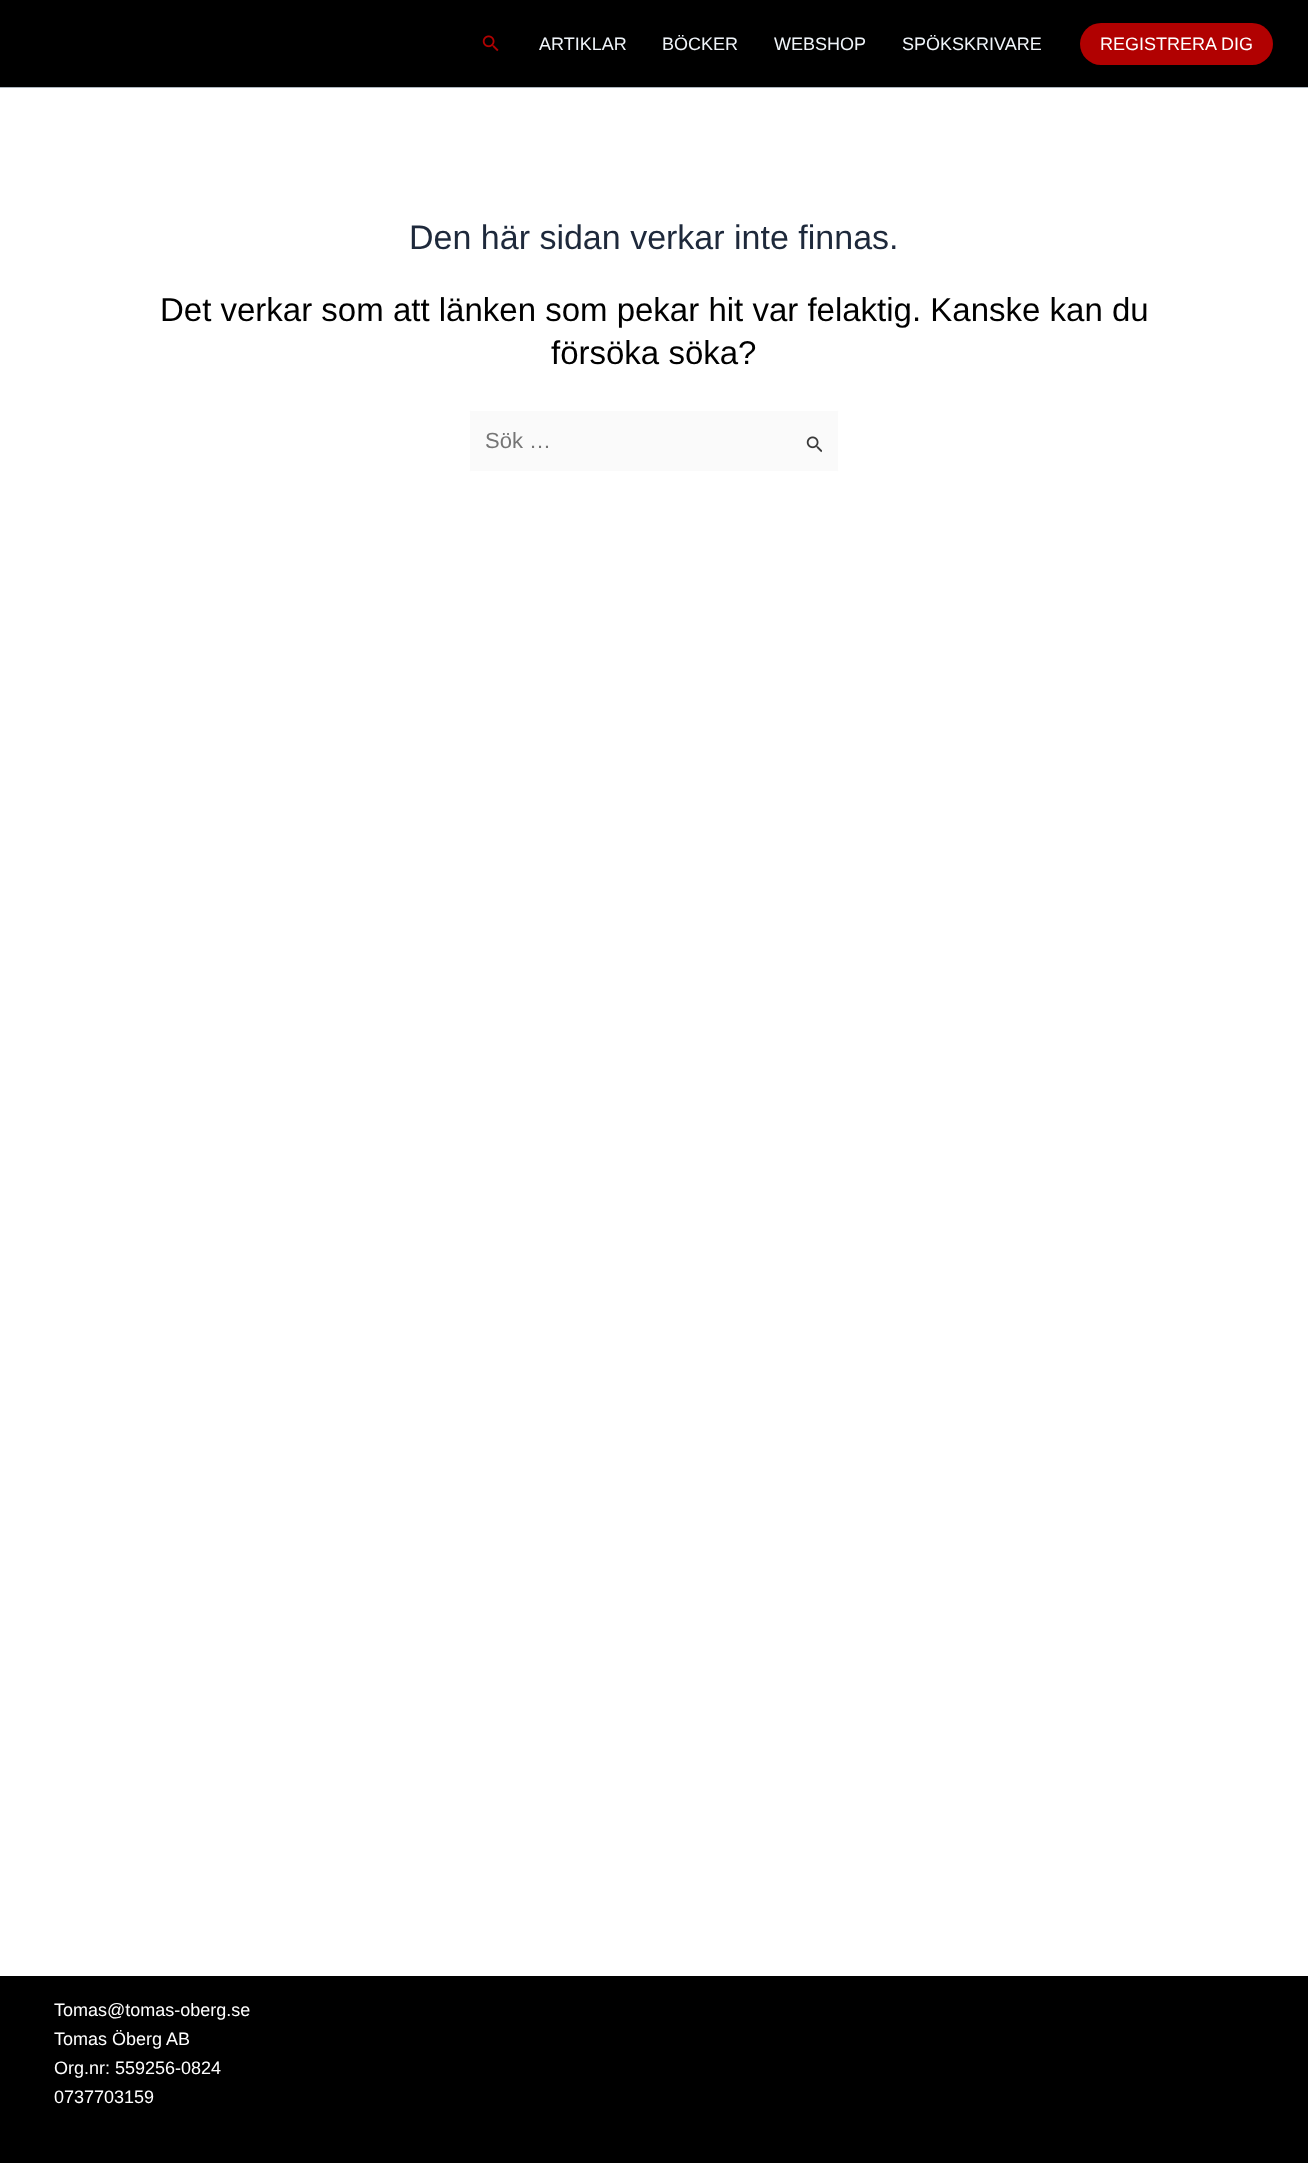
async function draw(canvas) {
  canvas.width = 1308
  canvas.height = 2163
  const ctx = canvas.getContext('2d')
  ctx.miterLimit = 4
  ctx.fontKerning = 'normal'
  async function loadImage(src) {
    const img = new Image()
    img.src = src
    await img.decode()
    return img
  }

  ctx.fillStyle = '#fff'
  ctx.fillRect(0, 0, 1308, 2163)
  ctx.fillStyle = '#000'
  ctx.fillRect(0, 0, 1308, 87)
  ctx.fillStyle = '#adb6be'
  ctx.fillRect(0, 87, 1308, 1)
  ctx.drawImage(await loadImage('image0.png'), 482, 35, 17, 17)
  ctx.font = '18px Liberation Sans'
  ctx.fillStyle = '#f0f5fa'
  ctx.fillText('ARTIKLAR', 539, 50)
  ctx.fillText('BÖCKER', 662, 50)
  ctx.fillText('WEBSHOP', 774, 50)
  ctx.fillText('SPÖKSKRIVARE', 902, 50)
  ctx.fillStyle = '#b10101'
  ctx.beginPath()
  ctx.roundRect(1080, 23, 193, 42, 21)
  ctx.fill()
  ctx.fillStyle = '#fff'
  ctx.fillText('REGISTRERA DIG', 1100, 50)
  ctx.font = '34px Liberation Sans'
  ctx.fillStyle = '#1e293b'
  ctx.fillText('Den här sidan verkar inte finnas.', 409, 249)
  ctx.font = '33px Liberation Sans'
  ctx.fillStyle = '#000'
  ctx.fillText('Det verkar som att länken som pekar hit var felaktig. Kanske kan du', 160, 321)
  ctx.fillText('försöka söka?', 551, 364)
  ctx.fillStyle = '#fafafa'
  ctx.beginPath()
  ctx.roundRect(469.5, 410.5, 369, 61, 1.5)
  ctx.fill()
  ctx.strokeStyle = '#fff'
  ctx.stroke()
  ctx.font = '22px Liberation Sans'
  ctx.fillStyle = '#757575'
  ctx.fillText('Sök …', 485, 448)
  ctx.drawImage(await loadImage('image1.png'), 806, 436, 16, 17)
  ctx.fillStyle = '#000'
  ctx.fillRect(0, 1976, 1308, 187)
  ctx.font = '18px Liberation Sans'
  ctx.fillStyle = '#fff'
  ctx.fillText('Tomas@tomas-oberg.se', 54, 2016)
  ctx.fillText('Tomas Öberg AB', 54, 2045)
  ctx.fillText('Org.nr: 559256-0824', 54, 2074)
  ctx.fillText('0737703159', 54, 2103)
}

draw(document.querySelector('canvas'))
